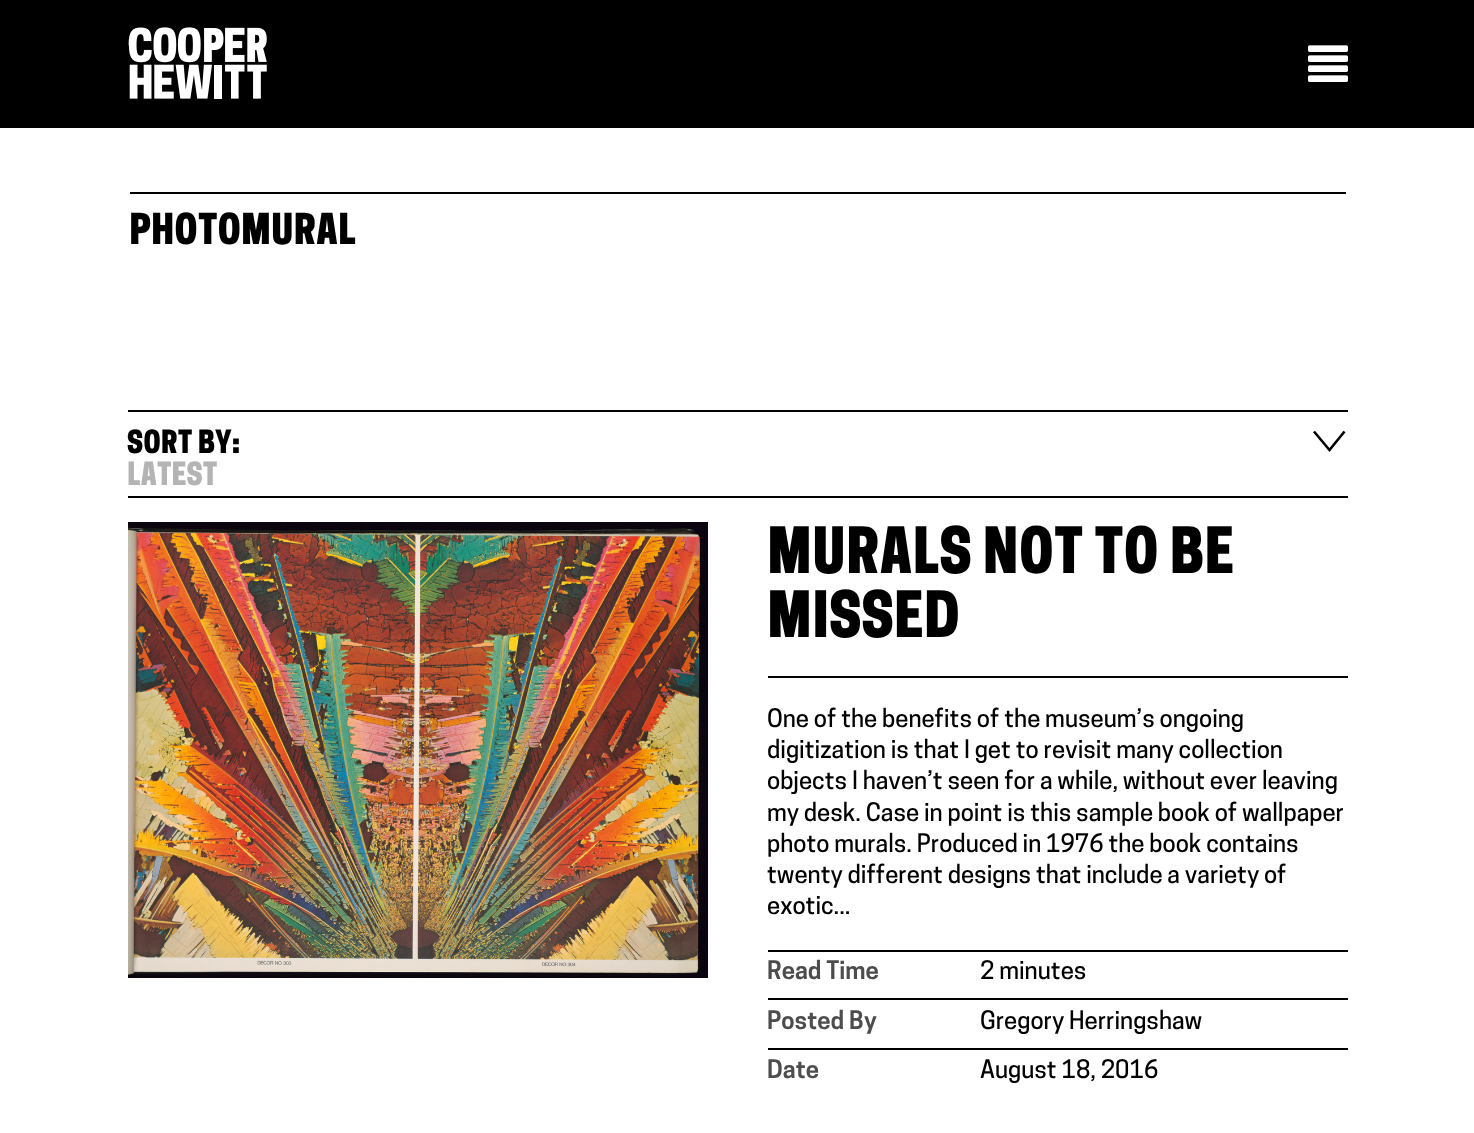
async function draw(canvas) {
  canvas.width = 1474
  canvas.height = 1133
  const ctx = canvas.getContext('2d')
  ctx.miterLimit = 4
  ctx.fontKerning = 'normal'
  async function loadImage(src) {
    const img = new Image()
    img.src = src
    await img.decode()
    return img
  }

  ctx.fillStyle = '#fff'
  ctx.fillRect(0, 0, 1474, 1133)
  ctx.fillStyle = '#000'
  ctx.fillRect(0, 0, 1474, 128)
  ctx.drawImage(await loadImage('image0.png'), 128, 27, 139, 72)
  ctx.drawImage(await loadImage('image1.png'), 1308, 45, 40, 37)
  ctx.fillRect(130, 192, 1216, 2)
  ctx.font = '600 40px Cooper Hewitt'
  ctx.fillText('PHOTOMURAL', 129, 244)
  ctx.fillRect(128, 410, 1220, 2)
  ctx.font = '600 30px Cooper Hewitt'
  ctx.fillText('SORT BY:', 127, 453)
  ctx.beginPath()
  ctx.moveTo(1344.5, 431.5)
  ctx.lineTo(1329.5, 450)
  ctx.lineTo(1314, 431.5)
  ctx.strokeStyle = '#000'
  ctx.lineWidth = 2.6
  ctx.stroke()
  ctx.fillStyle = '#b4b4b4'
  ctx.fillText('LATEST', 127, 485)
  ctx.fillStyle = '#000'
  ctx.fillRect(128, 496, 1220, 2)
  ctx.drawImage(await loadImage('image2.png'), 128, 522, 580, 456)
  ctx.font = '600 60px Cooper Hewitt'
  ctx.fillText('MURALS NOT TO BE', 767, 573)
  ctx.fillText('MISSED', 767, 637)
  ctx.fillRect(768, 676, 580, 2)
  ctx.font = '500 24px Cooper Hewitt'
  ctx.fillText('One of the benefits of the museum’s ongoing', 767, 727)
  ctx.fillText('digitization is that I get to revisit many collection', 767, 758)
  ctx.fillText('objects I haven’t seen for a while, without ever leaving', 767, 789)
  ctx.fillText('my desk. Case in point is this sample book of wallpaper', 767, 821)
  ctx.fillText('photo murals. Produced in 1976 the book contains', 767, 852)
  ctx.fillText('twenty different designs that include a variety of', 767, 883)
  ctx.fillText('exotic...', 767, 914)
  ctx.fillRect(768, 950, 580, 2)
  ctx.font = '600 24px "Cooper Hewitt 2"'
  ctx.fillStyle = '#4d4d4d'
  ctx.fillText('Read Time', 767, 979)
  ctx.font = '500 24px Cooper Hewitt'
  ctx.fillStyle = '#000'
  ctx.fillText('2 minutes', 980, 979)
  ctx.fillRect(768, 998, 580, 2)
  ctx.font = '600 24px "Cooper Hewitt 2"'
  ctx.fillStyle = '#4d4d4d'
  ctx.fillText('Posted By', 767, 1029)
  ctx.font = '500 24px Cooper Hewitt'
  ctx.fillStyle = '#000'
  ctx.fillText('Gregory Herringshaw', 980, 1029)
  ctx.fillRect(768, 1048, 580, 2)
  ctx.font = '600 24px "Cooper Hewitt 2"'
  ctx.fillStyle = '#4d4d4d'
  ctx.fillText('Date', 767, 1078)
  ctx.font = '500 24px Cooper Hewitt'
  ctx.fillStyle = '#000'
  ctx.fillText('August 18, 2016', 980, 1078)
}

draw(document.querySelector('canvas'))
